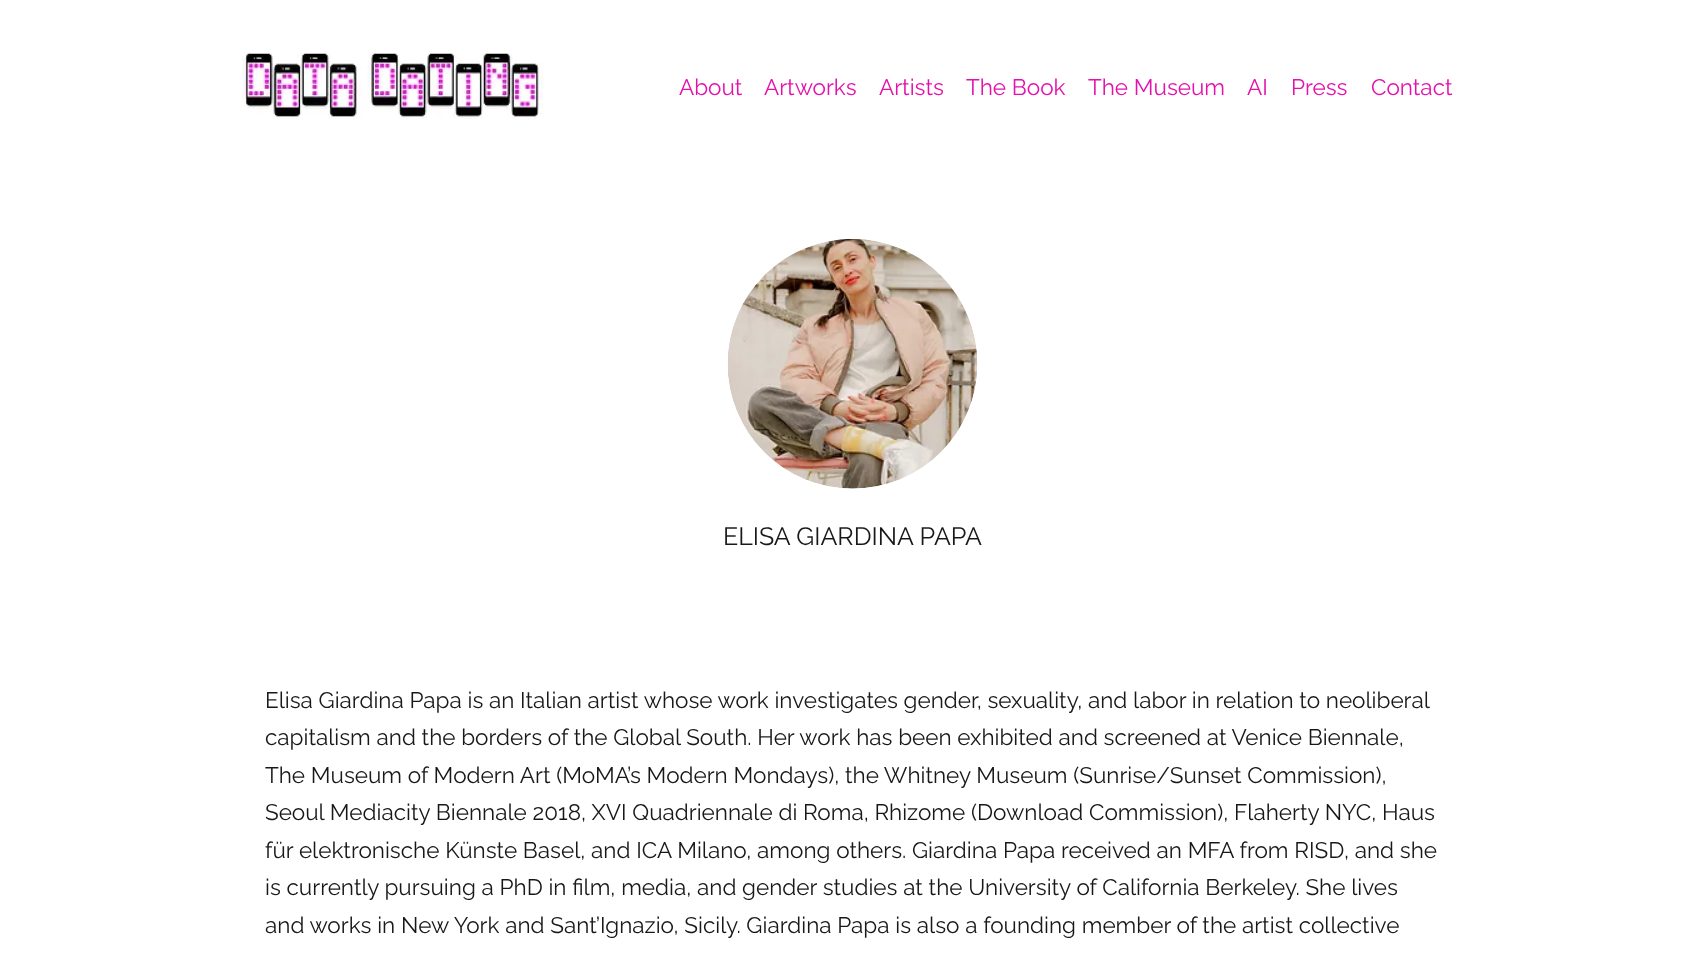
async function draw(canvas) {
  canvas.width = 1704
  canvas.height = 964
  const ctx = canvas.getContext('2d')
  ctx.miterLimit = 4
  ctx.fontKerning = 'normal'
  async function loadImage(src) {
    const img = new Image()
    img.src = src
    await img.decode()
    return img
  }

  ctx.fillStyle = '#fff'
  ctx.fillRect(0, 0, 1704, 964)
  ctx.drawImage(await loadImage('image0.png'), 242, 53, 302, 66)
  ctx.font = '22.5px Raleway'
  ctx.fillStyle = '#e411ad'
  ctx.fillText('About', 679, 95)
  ctx.fillText('Artworks', 764, 95)
  ctx.fillText('Artists', 879, 95)
  ctx.fillText('The Book', 966, 95)
  ctx.fillText('The Museum', 1088, 95)
  ctx.fillText('AI', 1247, 95)
  ctx.fillText('Press', 1291, 95)
  ctx.fillText('Contact', 1371, 95)
  ctx.drawImage(await loadImage('image1.png'), 727, 239, 251, 250)
  ctx.font = '25px Raleway'
  ctx.fillStyle = '#181818'
  ctx.fillText('ELISA GIARDINA PAPA', 723, 545)
  ctx.font = '22.5px Raleway'
  ctx.fillText('Elisa Giardina Papa is an Italian artist whose work investigates gender, sexuality, and labor in relation to neoliberal', 265, 708)
  ctx.fillText('capitalism and the borders of the Global South. Her work has been exhibited and screened at Venice Biennale,', 265, 745)
  ctx.fillText('The Museum of Modern Art (MoMA’s Modern Mondays), the Whitney Museum (Sunrise/Sunset Commission),', 265, 783)
  ctx.fillText('Seoul Mediacity Biennale 2018, XVI Quadriennale di Roma, Rhizome (Download Commission), Flaherty NYC, Haus', 265, 820)
  ctx.fillText('für elektronische Künste Basel, and ICA Milano, among others. Giardina Papa received an MFA from RISD, and she', 265, 858)
  ctx.fillText('is currently pursuing a PhD in film, media, and gender studies at the University of California Berkeley. She lives', 265, 895)
  ctx.fillText('and works in New York and Sant’Ignazio, Sicily. Giardina Papa is also a founding member of the artist collective', 265, 933)
}

draw(document.querySelector('canvas'))
